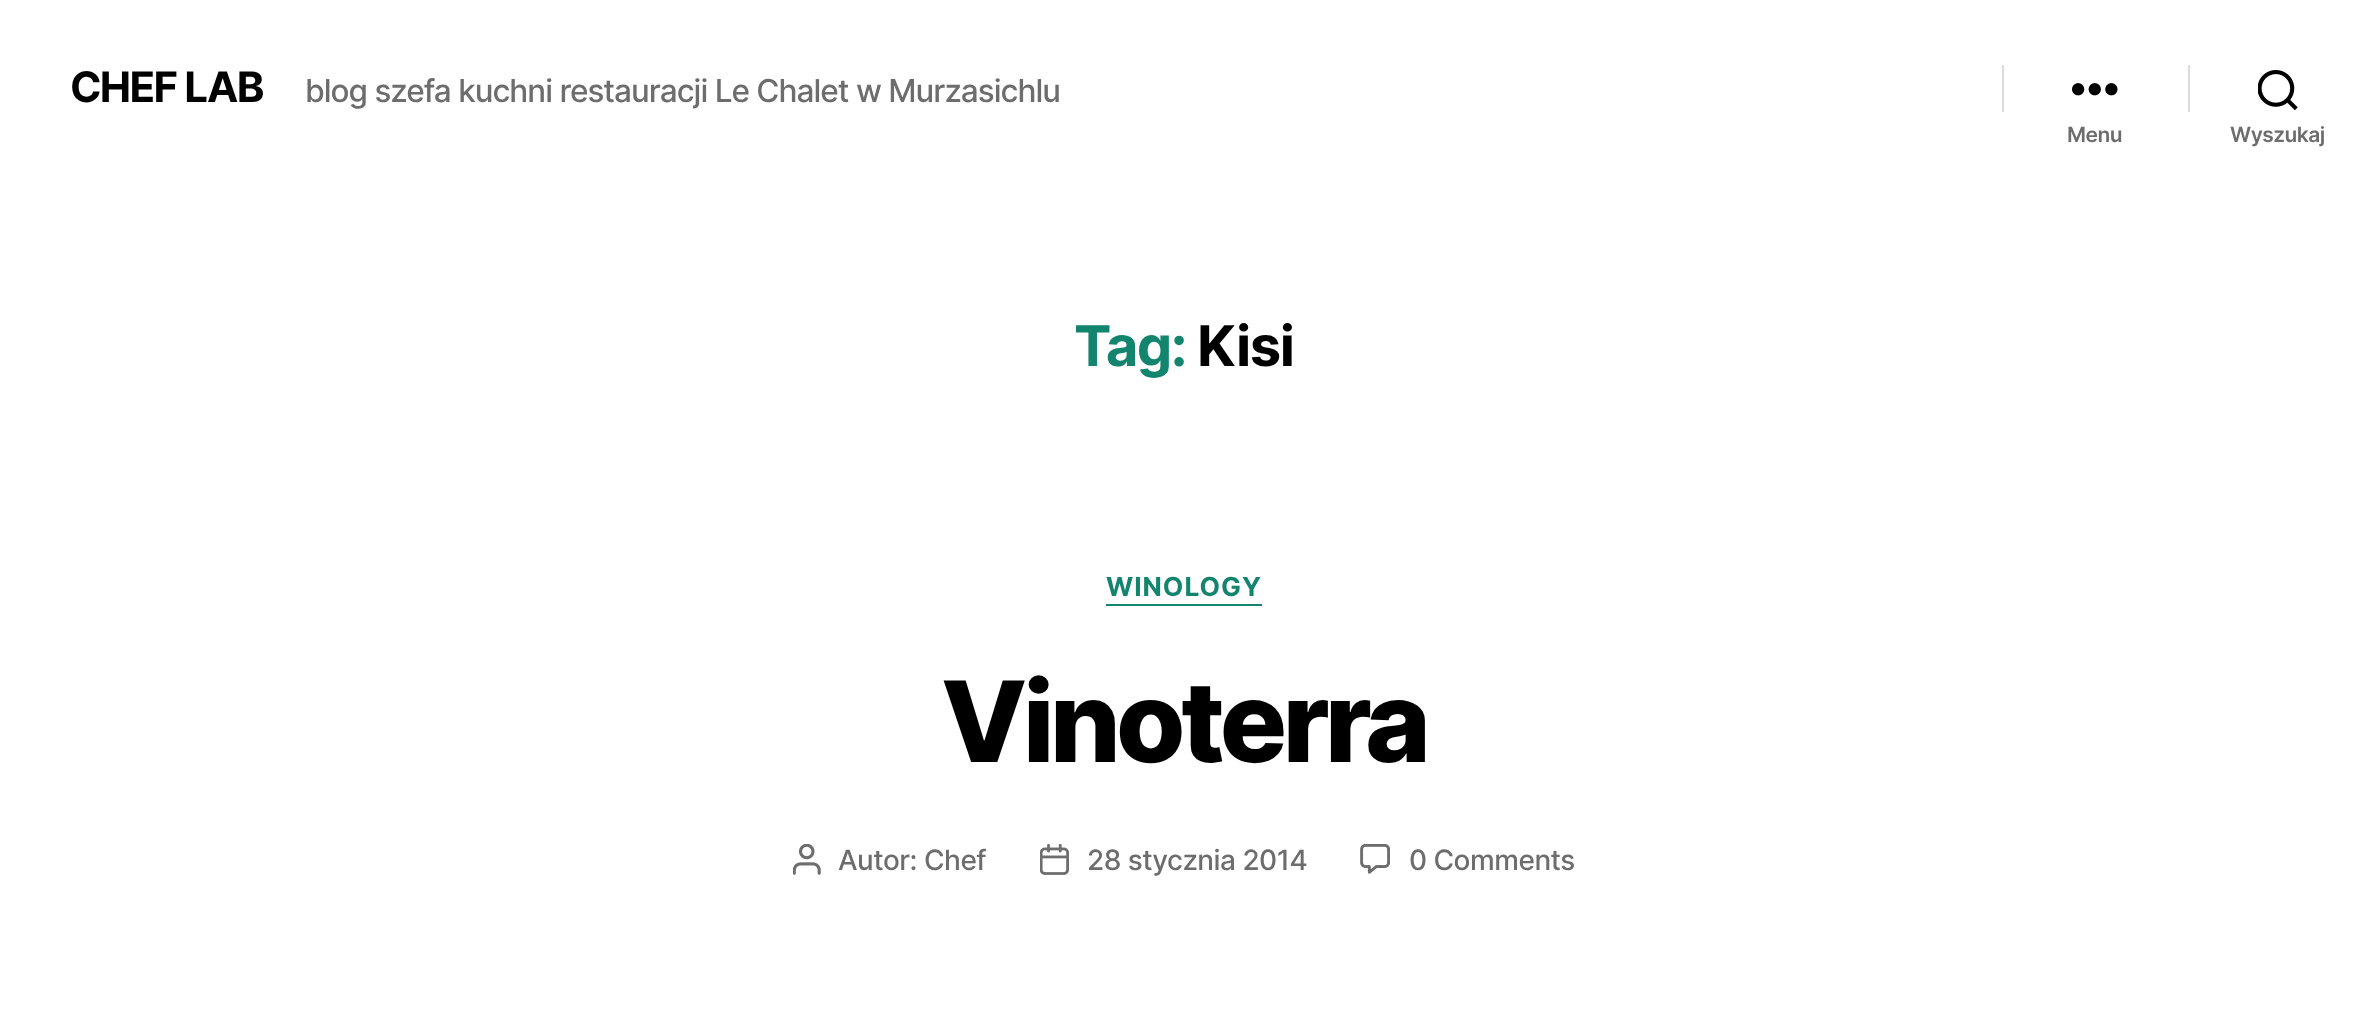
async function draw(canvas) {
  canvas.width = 2367
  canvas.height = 1022
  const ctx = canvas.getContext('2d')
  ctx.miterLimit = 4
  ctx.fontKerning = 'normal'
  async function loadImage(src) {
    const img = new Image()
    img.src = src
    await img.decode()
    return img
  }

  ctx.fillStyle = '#fff'
  ctx.fillRect(0, 0, 2367, 1022)
  ctx.letterSpacing = '-1.75px'
  ctx.font = 'bold 42px Inter'
  ctx.fillStyle = '#000'
  ctx.fillText('CHEF LAB', 70, 102)
  ctx.letterSpacing = '-0.98px'
  ctx.font = '500 31.5px Inter'
  ctx.fillStyle = '#6d6d6d'
  ctx.fillText('blog szefa kuchni restauracji Le Chalet w Murzasichlu', 305, 102)
  ctx.fillStyle = '#dbdbdb'
  ctx.fillRect(2002, 65, 2, 47)
  ctx.drawImage(await loadImage('image0.png'), 2072, 83, 46, 13)
  ctx.letterSpacing = '-0.5px'
  ctx.font = '600 21px Inter'
  ctx.fillStyle = '#6d6d6d'
  ctx.fillText('Menu', 2067, 142)
  ctx.fillStyle = '#dbdbdb'
  ctx.fillRect(2188, 65, 2, 47)
  ctx.drawImage(await loadImage('image1.png'), 2258, 70, 40, 41)
  ctx.fillStyle = '#6d6d6d'
  ctx.fillText('Wyszukaj', 2230, 142)
  ctx.letterSpacing = '-1.5px'
  ctx.font = 'bold 56px Inter'
  ctx.fillStyle = '#13856e'
  ctx.fillText('Tag:', 1074, 366)
  ctx.fillStyle = '#000'
  ctx.fillText('Kisi', 1197, 366)
  ctx.fillStyle = '#13856e'
  ctx.fillRect(1106, 604, 156, 2)
  ctx.letterSpacing = '1px'
  ctx.font = 'bold 26.25px Inter'
  ctx.fillText('WINOLOGY', 1106, 596)
  ctx.letterSpacing = '-4.75px'
  ctx.font = '800 112px Inter'
  ctx.fillStyle = '#000'
  ctx.fillText('Vinoterra', 941, 762)
  ctx.drawImage(await loadImage('image2.png'), 793, 844, 28, 31)
  ctx.letterSpacing = '-0.5px'
  ctx.font = '500 28px Inter'
  ctx.fillStyle = '#6d6d6d'
  ctx.fillText('Autor: Chef', 838, 870)
  ctx.drawImage(await loadImage('image3.png'), 1040, 844, 29, 31)
  ctx.fillText('28 stycznia 2014', 1087, 870)
  ctx.drawImage(await loadImage('image4.png'), 1360, 844, 30, 30)
  ctx.fillText('0 Comments', 1409, 870)
}

draw(document.querySelector('canvas'))
